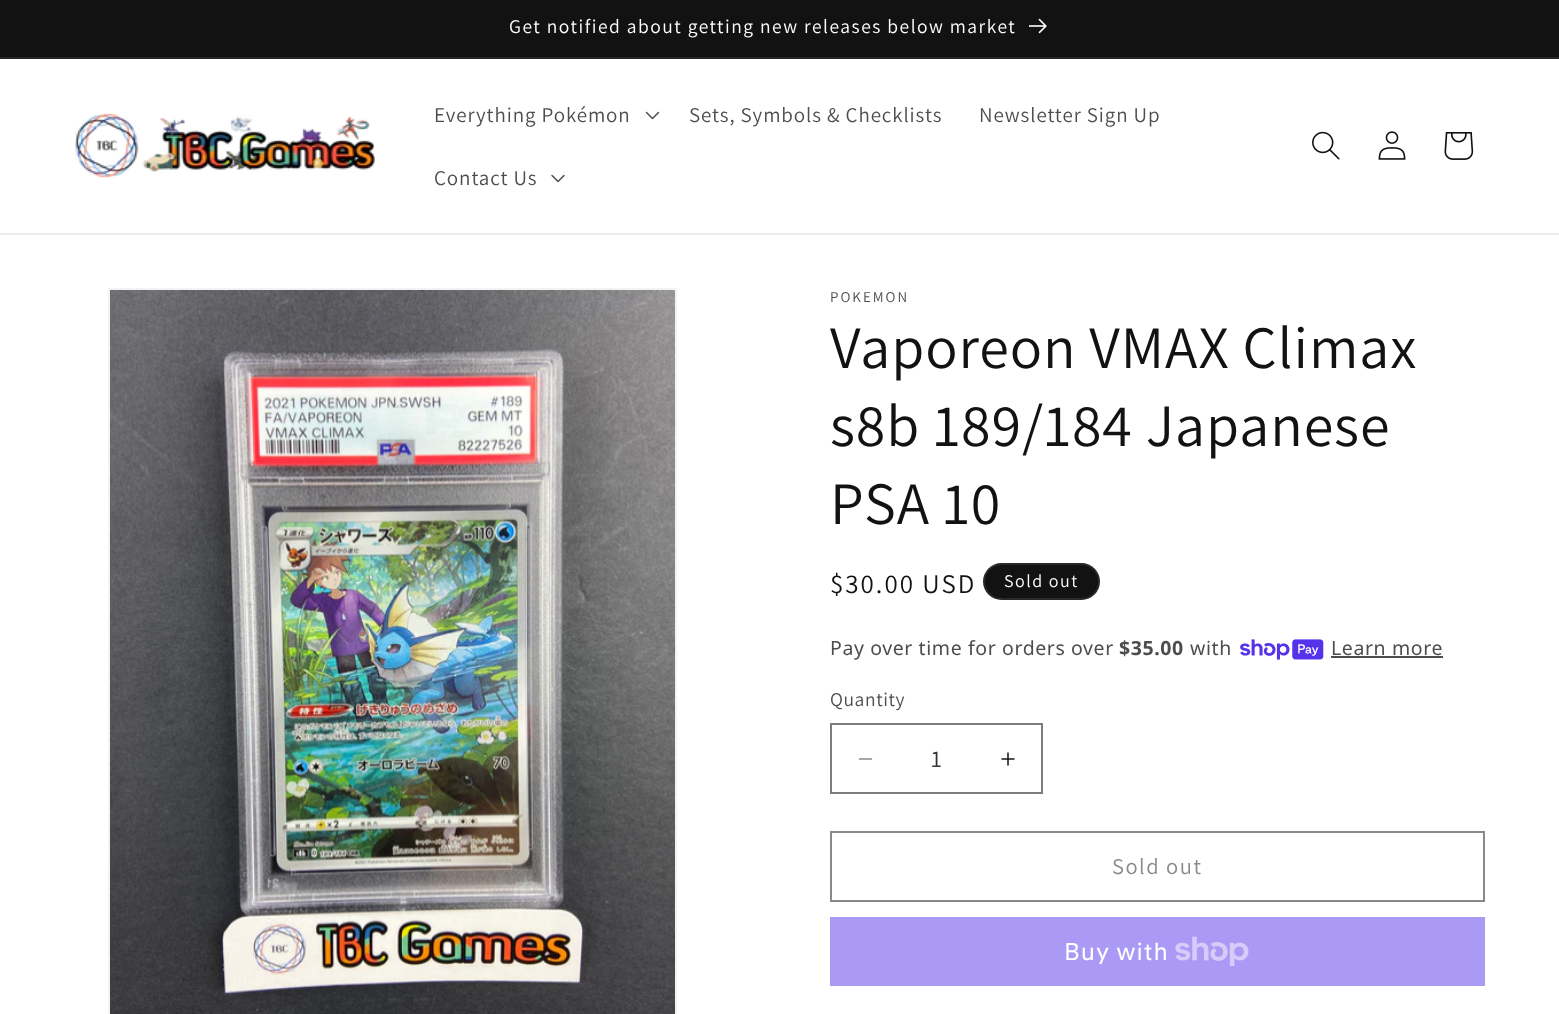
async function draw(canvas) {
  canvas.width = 1559
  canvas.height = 1014
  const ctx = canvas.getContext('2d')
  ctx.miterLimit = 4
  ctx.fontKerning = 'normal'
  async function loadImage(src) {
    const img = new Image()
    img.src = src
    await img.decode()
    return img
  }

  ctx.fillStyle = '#fff'
  ctx.fillRect(0, 0, 1559, 1014)
  ctx.fillStyle = '#121212'
  ctx.fillRect(0, 0, 1559, 57)
  ctx.fillStyle = '#252525'
  ctx.fillRect(0, 57, 1559, 2)
  ctx.letterSpacing = '1.5px'
  ctx.font = '19.5px Assistant'
  ctx.fillStyle = '#fff'
  ctx.fillText('Get notified about getting new releases below market', 509, 33)
  ctx.drawImage(await loadImage('image0.png'), 1029, 18, 18, 16)
  ctx.fillStyle = '#ececec'
  ctx.fillRect(0, 233, 1559, 2)
  ctx.drawImage(await loadImage('image1.png'), 75, 113, 300, 65)
  ctx.letterSpacing = '0.9px'
  ctx.font = '21px Assistant'
  ctx.fillStyle = '#4d4d4d'
  ctx.fillText('Everything Pokémon', 434, 122)
  ctx.drawImage(await loadImage('image2.png'), 645, 111, 15, 9)
  ctx.fillText('Sets, Symbols & Checklists', 689, 122)
  ctx.fillText('Newsletter Sign Up', 979, 122)
  ctx.fillText('Contact Us', 434, 185)
  ctx.drawImage(await loadImage('image3.png'), 551, 174, 14, 9)
  ctx.drawImage(await loadImage('image4.png'), 1312, 131, 28, 29)
  ctx.drawImage(await loadImage('image5.png'), 1378, 131, 28, 29)
  ctx.drawImage(await loadImage('image6.png'), 1444, 132, 30, 28)
  ctx.strokeStyle = '#f3f3f3'
  ctx.lineWidth = 2
  ctx.strokeRect(109, 289, 567, 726)
  ctx.drawImage(await loadImage('image7.png'), 110, 290, 565, 724)
  ctx.letterSpacing = '2px'
  ctx.font = '15px Assistant'
  ctx.fillText('POKEMON', 830, 302)
  ctx.letterSpacing = '0.9px'
  ctx.font = '60px Assistant'
  ctx.fillStyle = '#121212'
  ctx.fillText('Vaporeon VMAX Climax', 830, 368)
  ctx.fillText('s8b 189/184 Japanese', 830, 446)
  ctx.fillText('PSA 10', 830, 524)
  ctx.letterSpacing = '2px'
  ctx.font = '27px Assistant'
  ctx.fillText('$30.00 USD', 830, 593)
  ctx.beginPath()
  ctx.roundRect(983, 563, 117, 37, 18.5)
  ctx.fill()
  ctx.beginPath()
  ctx.roundRect(984, 564, 115, 35, 17.5)
  ctx.strokeStyle = '#ffffff1a'
  ctx.stroke()
  ctx.letterSpacing = '1.5px'
  ctx.font = '18px Assistant'
  ctx.fillStyle = '#fff'
  ctx.fillText('Sold out', 1004, 587)
  ctx.letterSpacing = '0.6px'
  ctx.font = '19.5px Noto Sans'
  ctx.fillStyle = '#4d4d4d'
  ctx.fillText('Pay over time for orders over', 830, 655)
  ctx.font = 'bold 19.5px Noto Sans'
  ctx.fillText('$35.00', 1119, 655)
  ctx.font = '19.5px Noto Sans'
  ctx.fillText('with', 1190, 655)
  ctx.drawImage(await loadImage('image8.png'), 1240, 639, 84, 21)
  ctx.fillText('Learn more', 1331, 655)
  ctx.fillRect(1331, 656, 112, 2)
  ctx.font = '19.5px Assistant'
  ctx.fillText('Quantity', 830, 706)
  ctx.drawImage(await loadImage('image9.png'), 858, 758, 15, 2)
  ctx.drawImage(await loadImage('image10.png'), 1001, 752, 14, 14)
  ctx.strokeStyle = '#7d7d7d'
  ctx.strokeRect(831, 724, 211, 69)
  ctx.letterSpacing = '0px'
  ctx.font = '24px Assistant'
  ctx.fillStyle = '#363636'
  ctx.fillText('1', 931, 767)
  ctx.strokeStyle = '#898989'
  ctx.strokeRect(831, 832, 653, 69)
  ctx.letterSpacing = '1.5px'
  ctx.font = '22.5px Assistant'
  ctx.fillStyle = '#898989'
  ctx.fillText('Sold out', 1112, 874)
  ctx.fillStyle = '#aa99f5'
  ctx.fillRect(830, 917, 655, 69)
  ctx.letterSpacing = '0.9px'
  ctx.font = '24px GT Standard'
  ctx.fillStyle = '#fff'
  ctx.fillText('Buy with', 1064, 960)
  ctx.drawImage(await loadImage('image11.png'), 1175, 936, 74, 30)
}

draw(document.querySelector('canvas'))
